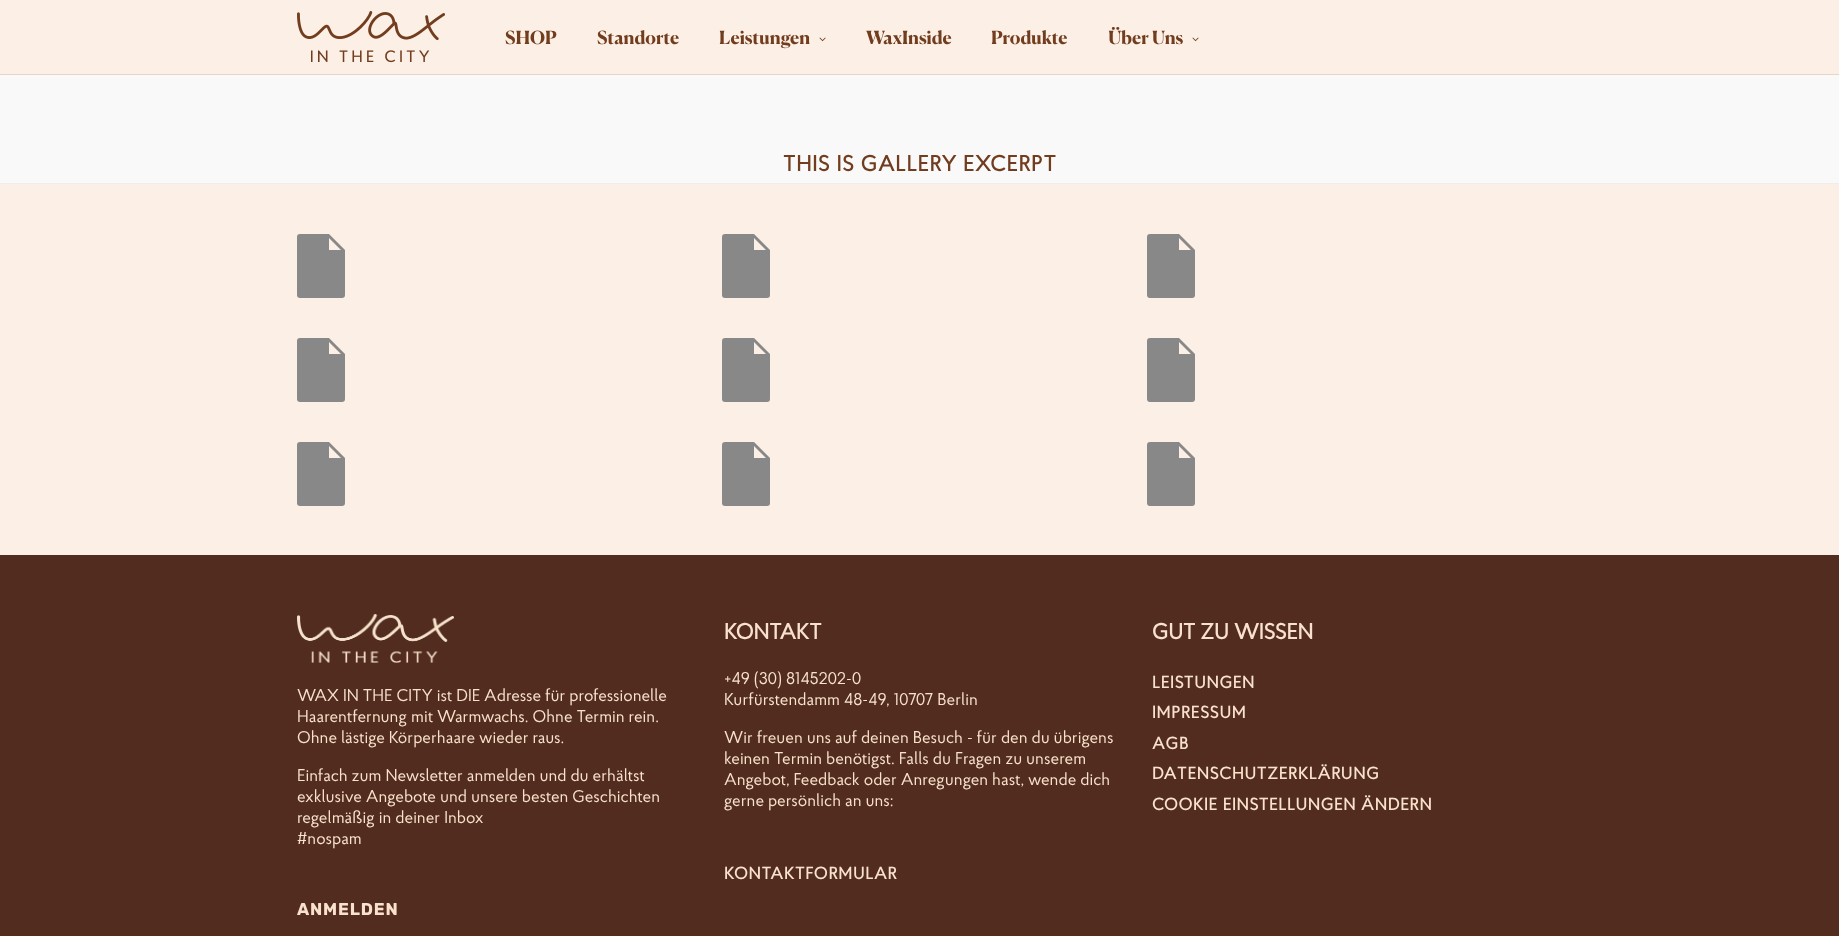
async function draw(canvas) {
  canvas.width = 1839
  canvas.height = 936
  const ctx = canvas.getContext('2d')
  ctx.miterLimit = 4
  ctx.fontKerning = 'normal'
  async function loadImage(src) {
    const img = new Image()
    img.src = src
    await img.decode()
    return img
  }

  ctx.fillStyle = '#fcf0e6'
  ctx.fillRect(0, 0, 1839, 936)
  ctx.fillStyle = '#e9d5c5'
  ctx.fillRect(0, 74, 1839, 1)
  ctx.drawImage(await loadImage('image0.png'), 297, 11, 148, 52)
  ctx.font = 'bold 18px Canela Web'
  ctx.fillStyle = '#723d1e'
  ctx.fillText('SHOP', 505, 44)
  ctx.fillText('Standorte', 597, 44)
  ctx.fillText('Leistungen', 719, 44)
  ctx.drawImage(await loadImage('image1.png'), 819, 37, 7, 5)
  ctx.fillText('WaxInside', 866, 44)
  ctx.fillText('Produkte', 991, 44)
  ctx.fillText('Über Uns', 1108, 44)
  ctx.drawImage(await loadImage('image1.png'), 1192, 37, 7, 5)
  ctx.fillStyle = '#f9f9f9'
  ctx.fillRect(0, 75, 1839, 108)
  ctx.fillStyle = '#eee'
  ctx.fillRect(0, 183, 1839, 1)
  ctx.letterSpacing = '0.9px'
  ctx.font = 'bold 22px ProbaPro'
  ctx.fillStyle = '#723d1e'
  ctx.fillText('THIS IS GALLERY EXCERPT', 783, 171)
  ctx.fillStyle = '#888'
  ctx.beginPath()
  ctx.moveTo(329, 234)
  ctx.lineTo(300, 234)
  ctx.bezierCurveTo(298, 234, 297, 235, 297, 237)
  ctx.lineTo(297, 295)
  ctx.bezierCurveTo(297, 297, 298, 298, 300, 298)
  ctx.lineTo(342, 298)
  ctx.bezierCurveTo(344, 298, 345, 297, 345, 295)
  ctx.lineTo(345, 250)
  ctx.closePath()
  ctx.moveTo(329, 250)
  ctx.lineTo(341, 250)
  ctx.lineTo(329, 238)
  ctx.closePath()
  ctx.fill('evenodd')
  ctx.beginPath()
  ctx.moveTo(754, 234)
  ctx.lineTo(725, 234)
  ctx.bezierCurveTo(723, 234, 722, 235, 722, 237)
  ctx.lineTo(722, 295)
  ctx.bezierCurveTo(722, 297, 723, 298, 725, 298)
  ctx.lineTo(767, 298)
  ctx.bezierCurveTo(769, 298, 770, 297, 770, 295)
  ctx.lineTo(770, 250)
  ctx.closePath()
  ctx.moveTo(754, 250)
  ctx.lineTo(766, 250)
  ctx.lineTo(754, 238)
  ctx.closePath()
  ctx.fill('evenodd')
  ctx.beginPath()
  ctx.moveTo(1179, 234)
  ctx.lineTo(1150, 234)
  ctx.bezierCurveTo(1148, 234, 1147, 235, 1147, 237)
  ctx.lineTo(1147, 295)
  ctx.bezierCurveTo(1147, 297, 1148, 298, 1150, 298)
  ctx.lineTo(1192, 298)
  ctx.bezierCurveTo(1194, 298, 1195, 297, 1195, 295)
  ctx.lineTo(1195, 250)
  ctx.closePath()
  ctx.moveTo(1179, 250)
  ctx.lineTo(1191, 250)
  ctx.lineTo(1179, 238)
  ctx.closePath()
  ctx.fill('evenodd')
  ctx.beginPath()
  ctx.moveTo(329, 338)
  ctx.lineTo(300, 338)
  ctx.bezierCurveTo(298, 338, 297, 339, 297, 341)
  ctx.lineTo(297, 399)
  ctx.bezierCurveTo(297, 401, 298, 402, 300, 402)
  ctx.lineTo(342, 402)
  ctx.bezierCurveTo(344, 402, 345, 401, 345, 399)
  ctx.lineTo(345, 354)
  ctx.closePath()
  ctx.moveTo(329, 354)
  ctx.lineTo(341, 354)
  ctx.lineTo(329, 342)
  ctx.closePath()
  ctx.fill('evenodd')
  ctx.beginPath()
  ctx.moveTo(754, 338)
  ctx.lineTo(725, 338)
  ctx.bezierCurveTo(723, 338, 722, 339, 722, 341)
  ctx.lineTo(722, 399)
  ctx.bezierCurveTo(722, 401, 723, 402, 725, 402)
  ctx.lineTo(767, 402)
  ctx.bezierCurveTo(769, 402, 770, 401, 770, 399)
  ctx.lineTo(770, 354)
  ctx.closePath()
  ctx.moveTo(754, 354)
  ctx.lineTo(766, 354)
  ctx.lineTo(754, 342)
  ctx.closePath()
  ctx.fill('evenodd')
  ctx.beginPath()
  ctx.moveTo(1179, 338)
  ctx.lineTo(1150, 338)
  ctx.bezierCurveTo(1148, 338, 1147, 339, 1147, 341)
  ctx.lineTo(1147, 399)
  ctx.bezierCurveTo(1147, 401, 1148, 402, 1150, 402)
  ctx.lineTo(1192, 402)
  ctx.bezierCurveTo(1194, 402, 1195, 401, 1195, 399)
  ctx.lineTo(1195, 354)
  ctx.closePath()
  ctx.moveTo(1179, 354)
  ctx.lineTo(1191, 354)
  ctx.lineTo(1179, 342)
  ctx.closePath()
  ctx.fill('evenodd')
  ctx.beginPath()
  ctx.moveTo(329, 442)
  ctx.lineTo(300, 442)
  ctx.bezierCurveTo(298, 442, 297, 443, 297, 445)
  ctx.lineTo(297, 503)
  ctx.bezierCurveTo(297, 505, 298, 506, 300, 506)
  ctx.lineTo(342, 506)
  ctx.bezierCurveTo(344, 506, 345, 505, 345, 503)
  ctx.lineTo(345, 458)
  ctx.closePath()
  ctx.moveTo(329, 458)
  ctx.lineTo(341, 458)
  ctx.lineTo(329, 446)
  ctx.closePath()
  ctx.fill('evenodd')
  ctx.beginPath()
  ctx.moveTo(754, 442)
  ctx.lineTo(725, 442)
  ctx.bezierCurveTo(723, 442, 722, 443, 722, 445)
  ctx.lineTo(722, 503)
  ctx.bezierCurveTo(722, 505, 723, 506, 725, 506)
  ctx.lineTo(767, 506)
  ctx.bezierCurveTo(769, 506, 770, 505, 770, 503)
  ctx.lineTo(770, 458)
  ctx.closePath()
  ctx.moveTo(754, 458)
  ctx.lineTo(766, 458)
  ctx.lineTo(754, 446)
  ctx.closePath()
  ctx.fill('evenodd')
  ctx.beginPath()
  ctx.moveTo(1179, 442)
  ctx.lineTo(1150, 442)
  ctx.bezierCurveTo(1148, 442, 1147, 443, 1147, 445)
  ctx.lineTo(1147, 503)
  ctx.bezierCurveTo(1147, 505, 1148, 506, 1150, 506)
  ctx.lineTo(1192, 506)
  ctx.bezierCurveTo(1194, 506, 1195, 505, 1195, 503)
  ctx.lineTo(1195, 458)
  ctx.closePath()
  ctx.moveTo(1179, 458)
  ctx.lineTo(1191, 458)
  ctx.lineTo(1179, 446)
  ctx.closePath()
  ctx.fill('evenodd')
  ctx.fillStyle = '#522c1e'
  ctx.fillRect(0, 555, 1839, 381)
  ctx.drawImage(await loadImage('image2.png'), 297, 614, 157, 49)
  ctx.letterSpacing = '0px'
  ctx.font = '17px ProbaPro'
  ctx.fillStyle = '#f9e2cd'
  ctx.fillText('WAX IN THE CITY ist DIE Adresse für professionelle', 297, 701)
  ctx.fillText('Haarentfernung mit Warmwachs. Ohne Termin rein.', 297, 722)
  ctx.fillText('Ohne lästige Körperhaare wieder raus.', 297, 743)
  ctx.fillText('Einfach zum Newsletter anmelden und du erhältst', 297, 781)
  ctx.fillText('exklusive Angebote und unsere besten Geschichten', 297, 802)
  ctx.fillText('regelmäßig in deiner Inbox', 297, 823)
  ctx.fillText('#nospam', 297, 844)
  ctx.letterSpacing = '0.85px'
  ctx.font = 'bold 17px Rubik'
  ctx.fillText('ANMELDEN', 297, 915)
  ctx.letterSpacing = '0px'
  ctx.font = 'bold 22px ProbaPro'
  ctx.fillText('KONTAKT', 724, 639)
  ctx.font = '17px ProbaPro'
  ctx.fillText('+49 (30) 8145202-0', 724, 684)
  ctx.fillText('Kurfürstendamm 48-49, 10707 Berlin', 724, 705)
  ctx.fillText('Wir freuen uns auf deinen Besuch - für den du übrigens', 724, 743)
  ctx.fillText('keinen Termin benötigst. Falls du Fragen zu unserem', 724, 764)
  ctx.fillText('Angebot, Feedback oder Anregungen hast, wende dich', 724, 785)
  ctx.fillText('gerne persönlich an uns:', 724, 806)
  ctx.letterSpacing = '0.85px'
  ctx.font = 'bold 17px ProbaPro'
  ctx.fillText('KONTAKTFORMULAR', 724, 879)
  ctx.letterSpacing = '0px'
  ctx.font = 'bold 22px ProbaPro'
  ctx.fillText('GUT ZU WISSEN', 1152, 639)
  ctx.letterSpacing = '0.85px'
  ctx.font = 'bold 17px ProbaPro'
  ctx.fillText('LEISTUNGEN', 1152, 688)
  ctx.fillText('IMPRESSUM', 1152, 718)
  ctx.fillText('AGB', 1152, 749)
  ctx.fillText('DATENSCHUTZERKLÄRUNG', 1152, 779)
  ctx.fillText('COOKIE EINSTELLUNGEN ÄNDERN', 1152, 810)
}

draw(document.querySelector('canvas'))
